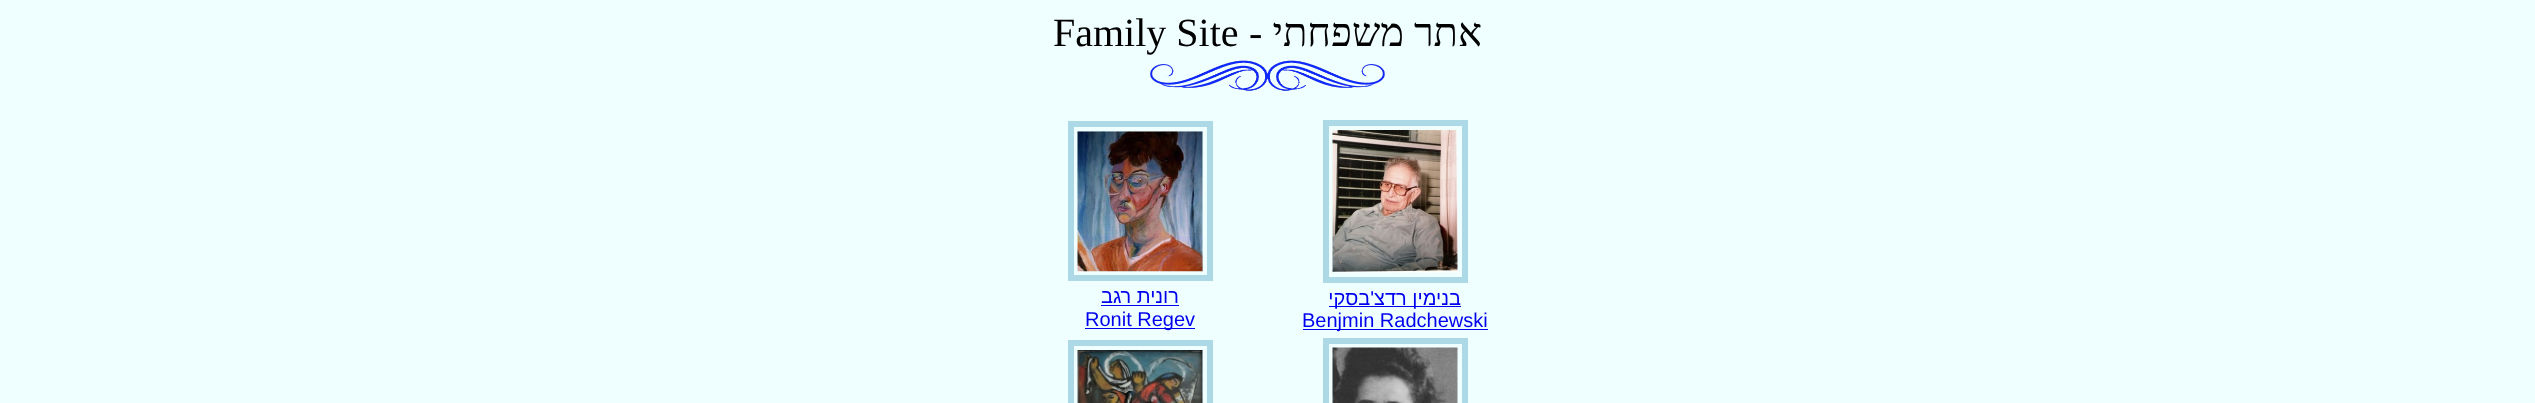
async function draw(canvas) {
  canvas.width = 2535
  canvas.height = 403
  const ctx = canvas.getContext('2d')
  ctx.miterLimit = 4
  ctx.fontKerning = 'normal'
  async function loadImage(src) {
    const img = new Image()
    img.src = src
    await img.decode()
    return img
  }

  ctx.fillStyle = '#efffff'
  ctx.fillRect(0, 0, 2535, 403)
  ctx.font = '40px Liberation Serif'
  ctx.fillStyle = '#000'
  ctx.fillText('Family Site', 1053, 46)
  ctx.direction = 'rtl'
  ctx.fillText('אתר משפחתי -', 1482, 46)
  ctx.drawImage(await loadImage('image0.png'), 1150, 60, 235, 31)
  ctx.strokeStyle = '#add8e6'
  ctx.lineWidth = 6
  ctx.strokeRect(1071, 124, 139, 154)
  ctx.drawImage(await loadImage('image1.png'), 1077, 131, 126, 141)
  ctx.font = '20px Liberation Sans'
  ctx.fillStyle = '#00e'
  ctx.fillText('רונית רגב', 1179, 303)
  ctx.fillRect(1101, 305, 78, 1)
  ctx.fillRect(1085, 328, 110, 1)
  ctx.direction = 'ltr'
  ctx.fillText('Ronit Regev', 1085, 326)
  ctx.strokeRect(1326, 123, 139, 157)
  ctx.drawImage(await loadImage('image2.png'), 1332, 130, 126, 143)
  ctx.fillRect(1329, 306, 132, 1)
  ctx.direction = 'rtl'
  ctx.fillText('בנימין רדצ\'בסקי', 1461, 305)
  ctx.fillRect(1303, 329, 185, 1)
  ctx.direction = 'ltr'
  ctx.fillText('Benjmin Radchewski', 1302, 327)
  ctx.strokeRect(1071, 343, 139, 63)
  ctx.drawImage(await loadImage('image3.png'), 1077, 350, 126, 53)
  ctx.strokeRect(1326, 341, 139, 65)
  ctx.drawImage(await loadImage('image4.png'), 1332, 347, 126, 56)
}

draw(document.querySelector('canvas'))
